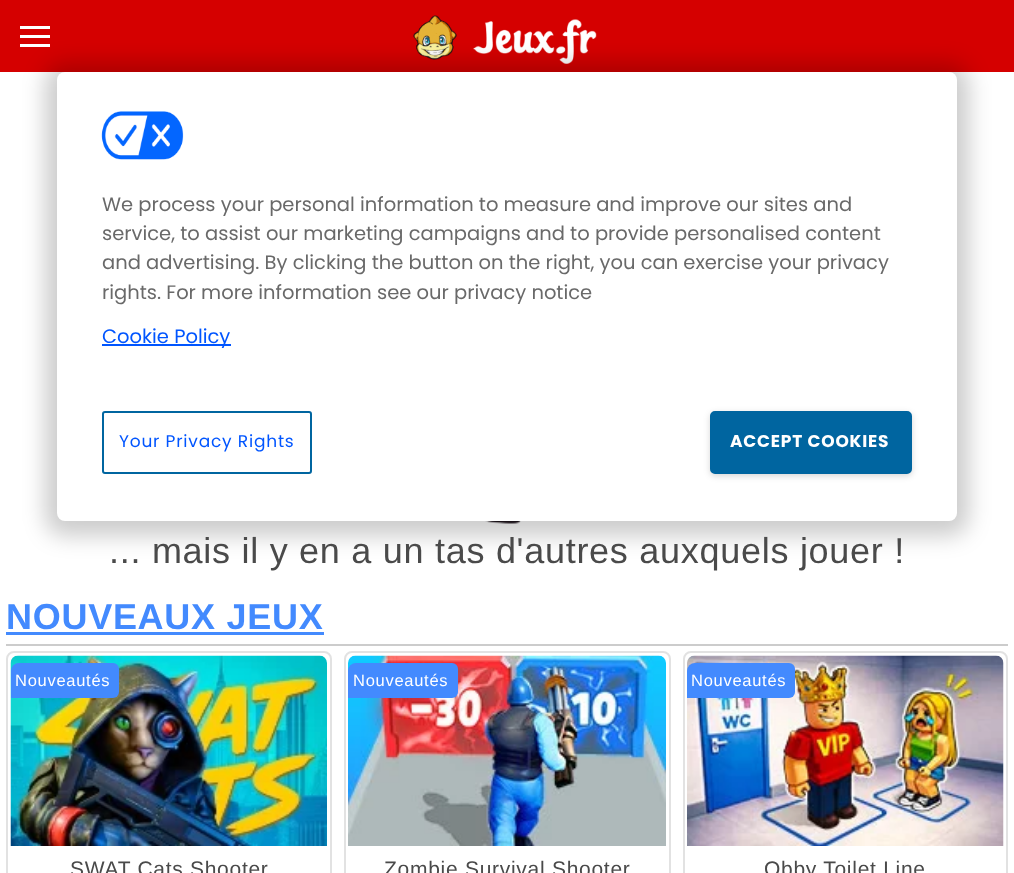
async function draw(canvas) {
  canvas.width = 1014
  canvas.height = 873
  const ctx = canvas.getContext('2d')
  ctx.miterLimit = 4
  ctx.fontKerning = 'normal'
  async function loadImage(src) {
    const img = new Image()
    img.src = src
    await img.decode()
    return img
  }

  ctx.fillStyle = '#d50000'
  ctx.fillRect(0, 0, 1014, 873)
  ctx.fillStyle = '#fff'
  ctx.fillRect(20, 35, 30, 3)
  ctx.fillRect(20, 44, 30, 3)
  ctx.drawImage(await loadImage('image1.png'), 413, 15, 184, 49)
  ctx.fillRect(0, 72, 1014, 801)
  ctx.drawImage(await loadImage('image2.png'), 485, 521, 36, 3)
  ctx.fillStyle = '#00000033'
  ctx.filter = 'blur(11px)'
  ctx.beginPath()
  ctx.roundRect(45, 63, 924, 473, 20)
  ctx.fill()
  ctx.filter = 'none'
  ctx.fillStyle = '#fff'
  ctx.beginPath()
  ctx.roundRect(57, 72, 900, 449, 8)
  ctx.fill()
  ctx.drawImage(await loadImage('image0.png'), 101, 111, 83, 49)
  ctx.font = '19.5px Poppins'
  ctx.fillStyle = '#696969'
  ctx.fillText('We process your personal information to measure and improve our sites and', 102, 211)
  ctx.fillText('service, to assist our marketing campaigns and to provide personalised content', 102, 240)
  ctx.fillText('and advertising. By clicking the button on the right, you can exercise your privacy', 102, 269)
  ctx.fillText('rights. For more information see our privacy notice', 102, 299)
  ctx.fillStyle = '#05f'
  ctx.fillRect(102, 344, 129, 2)
  ctx.fillText('Cookie Policy', 102, 343)
  ctx.beginPath()
  ctx.roundRect(103, 412, 208, 61, 2)
  ctx.strokeStyle = '#0065a0'
  ctx.lineWidth = 2
  ctx.stroke()
  ctx.letterSpacing = '0.8px'
  ctx.font = '17px Poppins'
  ctx.fillText('Your Privacy Rights', 119, 447)
  ctx.fillStyle = '#00000029'
  ctx.filter = 'blur(3px)'
  ctx.beginPath()
  ctx.roundRect(710, 413, 202, 63, 5)
  ctx.fill()
  ctx.filter = 'none'
  ctx.fillStyle = '#0065a0'
  ctx.beginPath()
  ctx.roundRect(711, 412, 200, 61, 4)
  ctx.fill()
  ctx.stroke()
  ctx.font = 'bold 17px Poppins'
  ctx.fillStyle = '#fff'
  ctx.fillText('ACCEPT COOKIES', 730, 447)
  ctx.fillRect(20, 26, 30, 3)
  ctx.letterSpacing = '0.72px'
  ctx.font = '36px Liberation Sans'
  ctx.fillStyle = '#4a4a4a'
  ctx.fillText('... mais il y en a un tas d\'autres auxquels jouer !', 109, 563)
  ctx.fillStyle = '#ccc'
  ctx.fillRect(6, 644, 1002, 2)
  ctx.font = 'bold 36px Liberation Sans'
  ctx.fillStyle = '#438afe'
  ctx.fillText('NOUVEAUX JEUX', 6, 629)
  ctx.fillRect(6, 632, 318, 3)
  ctx.beginPath()
  ctx.roundRect(7, 652, 324, 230, 7)
  ctx.strokeStyle = '#e2e2e2'
  ctx.stroke()
  ctx.drawImage(await loadImage('image3.png'), 10, 655, 317, 191)
  ctx.beginPath()
  ctx.roundRect(11, 663, 108, 35, [8, 6, 6, 0])
  ctx.fill()
  ctx.font = '16.5px Liberation Sans'
  ctx.fillStyle = '#fff'
  ctx.fillText('Nouveautés', 15, 686)
  ctx.font = '21px Liberation Sans'
  ctx.fillStyle = '#4a4a4a'
  ctx.fillText('SWAT Cats Shooter', 70, 876)
  ctx.beginPath()
  ctx.roundRect(345, 652, 325, 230, 7)
  ctx.stroke()
  ctx.drawImage(await loadImage('image4.png'), 348, 655, 318, 191)
  ctx.fillStyle = '#438afe'
  ctx.beginPath()
  ctx.roundRect(348, 663, 110, 35, [8, 6, 6, 0])
  ctx.fill()
  ctx.font = '16.5px Liberation Sans'
  ctx.fillStyle = '#fff'
  ctx.fillText('Nouveautés', 353, 686)
  ctx.font = '21px Liberation Sans'
  ctx.fillStyle = '#4a4a4a'
  ctx.fillText('Zombie Survival Shooter', 384, 876)
  ctx.beginPath()
  ctx.roundRect(684, 652, 323, 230, 7)
  ctx.stroke()
  ctx.drawImage(await loadImage('image5.png'), 687, 655, 317, 191)
  ctx.fillStyle = '#438afe'
  ctx.beginPath()
  ctx.roundRect(687, 663, 108, 35, [8, 6, 6, 0])
  ctx.fill()
  ctx.font = '16.5px Liberation Sans'
  ctx.fillStyle = '#fff'
  ctx.fillText('Nouveautés', 691, 686)
  ctx.font = '21px Liberation Sans'
  ctx.fillStyle = '#4a4a4a'
  ctx.fillText('Obby Toilet Line', 764, 876)
}

draw(document.querySelector('canvas'))
